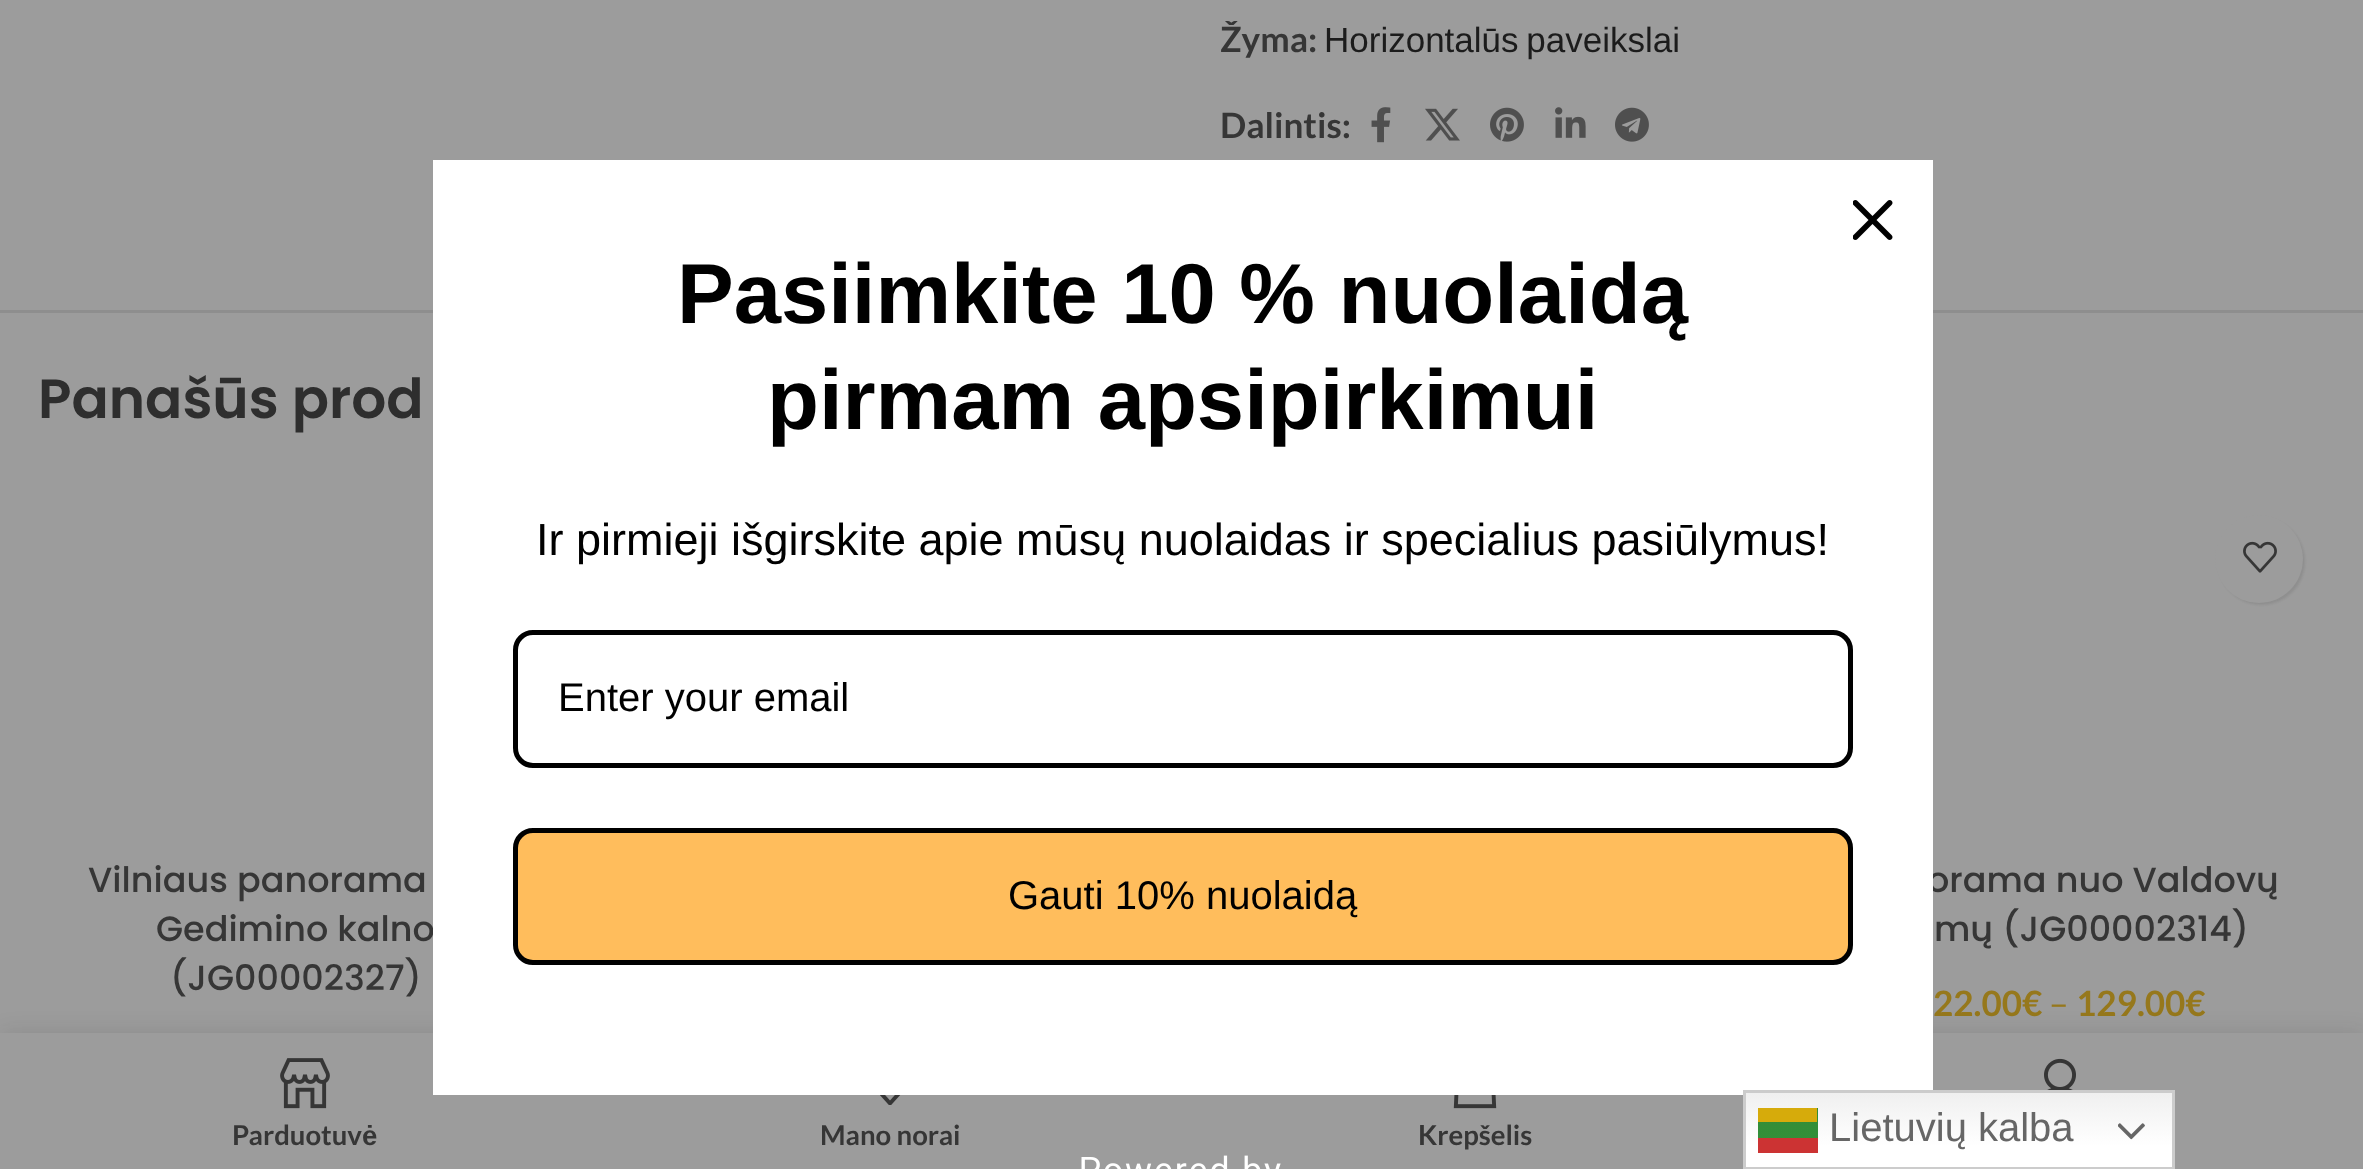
async function draw(canvas) {
  canvas.width = 2363
  canvas.height = 1169
  const ctx = canvas.getContext('2d')
  ctx.miterLimit = 4
  ctx.fontKerning = 'normal'
  async function loadImage(src) {
    const img = new Image()
    img.src = src
    await img.decode()
    return img
  }
  let gradient

  ctx.fillStyle = '#9c9c9c'
  ctx.fillRect(0, 0, 2363, 1169)
  ctx.font = 'bold 35px Lato'
  ctx.fillStyle = '#363636'
  ctx.fillText('Žyma:', 1220, 52)
  ctx.wordSpacing = '-2px'
  ctx.font = '35px Liberation Sans'
  ctx.fillStyle = '#1c1c1c'
  ctx.fillText('Horizontalūs paveikslai', 1324, 52)
  ctx.wordSpacing = '0px'
  ctx.font = 'bold 35px Lato'
  ctx.fillStyle = '#363636'
  ctx.fillText('Dalintis:', 1220, 138)
  ctx.drawImage(await loadImage('image0.png'), 1371, 107, 20, 36)
  ctx.drawImage(await loadImage('image1.png'), 1425, 108, 35, 33)
  ctx.drawImage(await loadImage('image2.png'), 1490, 107, 34, 35)
  ctx.drawImage(await loadImage('image3.png'), 1555, 107, 31, 31)
  ctx.drawImage(await loadImage('image4.png'), 1615, 107, 34, 35)
  ctx.fillStyle = '#8e8e8e'
  ctx.fillRect(0, 310, 2363, 3)
  ctx.font = '600 55px Poppins'
  ctx.fillStyle = '#2e2e2e'
  ctx.fillText('Panašūs prod', 38, 418)
  ctx.font = '500 35px Poppins'
  ctx.fillStyle = '#363636'
  ctx.fillText('Vilniaus panorama', 88, 892)
  ctx.fillText('Gedimino kalno', 156, 941)
  ctx.fillText('(JG00002327)', 170, 990)
  ctx.fillStyle = '#1c1c1c1a'
  ctx.filter = 'blur(1px)'
  ctx.beginPath()
  ctx.roundRect(2218, 518, 87, 87, 43.5)
  ctx.fill()
  ctx.filter = 'none'
  ctx.fillStyle = '#9c9c9c'
  ctx.beginPath()
  ctx.arc(2259, 559, 44, 0, 2 * Math.PI)
  ctx.fill()
  ctx.drawImage(await loadImage('image5.png'), 2243, 541, 34, 32)
  ctx.fillStyle = '#363636'
  ctx.fillText('orama nuo Valdovų', 1927, 892)
  ctx.fillText('mų (JG00002314)', 1934, 941)
  ctx.font = 'bold 35px Lato'
  ctx.fillStyle = '#96781c'
  ctx.fillText('22.00€', 1933, 1016)
  ctx.font = '35px Lato'
  ctx.fillText('–', 2049, 1016)
  ctx.font = 'bold 35px Lato'
  ctx.fillText('129.00€', 2076, 1016)
  ctx.fillStyle = '#1c1c1c1f'
  ctx.filter = 'blur(11px)'
  ctx.beginPath()
  ctx.rect(0, 1033, 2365, 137)
  ctx.fill()
  ctx.filter = 'none'
  ctx.fillStyle = '#9c9c9c'
  ctx.fillRect(0, 1033, 2363, 136)
  ctx.fillStyle = '#fff'
  ctx.fillRect(433, 160, 1500, 935)
  ctx.drawImage(await loadImage('image6.png'), 1853, 200, 40, 40)
  ctx.font = 'bold 85px Liberation Sans'
  ctx.fillStyle = '#000'
  ctx.fillText('Pasiimkite 10 % nuolaidą', 677, 323)
  ctx.fillText('pirmam apsipirkimui', 767, 429)
  ctx.font = '45px Liberation Sans'
  ctx.fillText('Ir pirmieji išgirskite apie mūsų nuolaidas ir specialius pasiūlymus!', 536, 555)
  ctx.beginPath()
  ctx.roundRect(515.5, 632.5, 1335, 133, 17.5)
  ctx.strokeStyle = '#000'
  ctx.lineWidth = 5
  ctx.stroke()
  ctx.font = '40px Liberation Sans'
  ctx.fillText('Enter your email', 558, 711)
  ctx.fillStyle = '#ffbd5c'
  ctx.beginPath()
  ctx.roundRect(515.5, 830.5, 1335, 132, 17.5)
  ctx.fill()
  ctx.stroke()
  ctx.fillStyle = '#000'
  ctx.fillText('Gauti 10% nuolaidą', 1008, 909)
  ctx.drawImage(await loadImage('image7.png'), 1081, 1155, 200, 14)
  ctx.drawImage(await loadImage('image8.png'), 2044, 1058, 32, 32)
  ctx.drawImage(await loadImage('image9.png'), 280, 1058, 50, 51)
  ctx.font = 'bold 27.5px Lato'
  ctx.fillStyle = '#363636'
  ctx.fillText('Parduotuv', 232, 1145)
  ctx.font = 'bold 27.5px Liberation Sans'
  ctx.fillText('ė', 362, 1145)
  ctx.drawImage(await loadImage('image10.png'), 880, 1095, 21, 10)
  ctx.font = 'bold 27.5px Lato'
  ctx.fillText('Mano norai', 820, 1145)
  ctx.drawImage(await loadImage('image11.png'), 1453, 1095, 44, 14)
  ctx.fillText('Krepšelis', 1418, 1145)
  gradient = ctx.createLinearGradient(1959, 1090, 1959, 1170)
  gradient.addColorStop(0, '#efefef')
  gradient.addColorStop(0.7, '#fff')
  ctx.fillStyle = gradient
  ctx.fillRect(1746, 1093, 426, 74)
  gradient = ctx.createLinearGradient(1959, 1090, 1959, 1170)
  gradient.addColorStop(0, '#308c36')
  gradient.addColorStop(0.7, '#338f39')
  ctx.fillStyle = gradient
  ctx.fillRect(1758, 1108, 60, 30)
  ctx.strokeStyle = '#ccc'
  ctx.lineWidth = 3
  ctx.strokeRect(1744.5, 1091.5, 429, 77)
  ctx.fillStyle = '#d6ab0b'
  ctx.fillRect(1758, 1108, 59, 14)
  ctx.font = '40px Liberation Sans'
  ctx.fillStyle = '#666'
  ctx.fillText('Lietuvių kalba', 1829, 1141)
  ctx.drawImage(await loadImage('image12.png'), 2118, 1123, 27, 17)
  ctx.fillStyle = '#c33'
  ctx.fillRect(1758, 1138, 60, 15)
}

draw(document.querySelector('canvas'))
